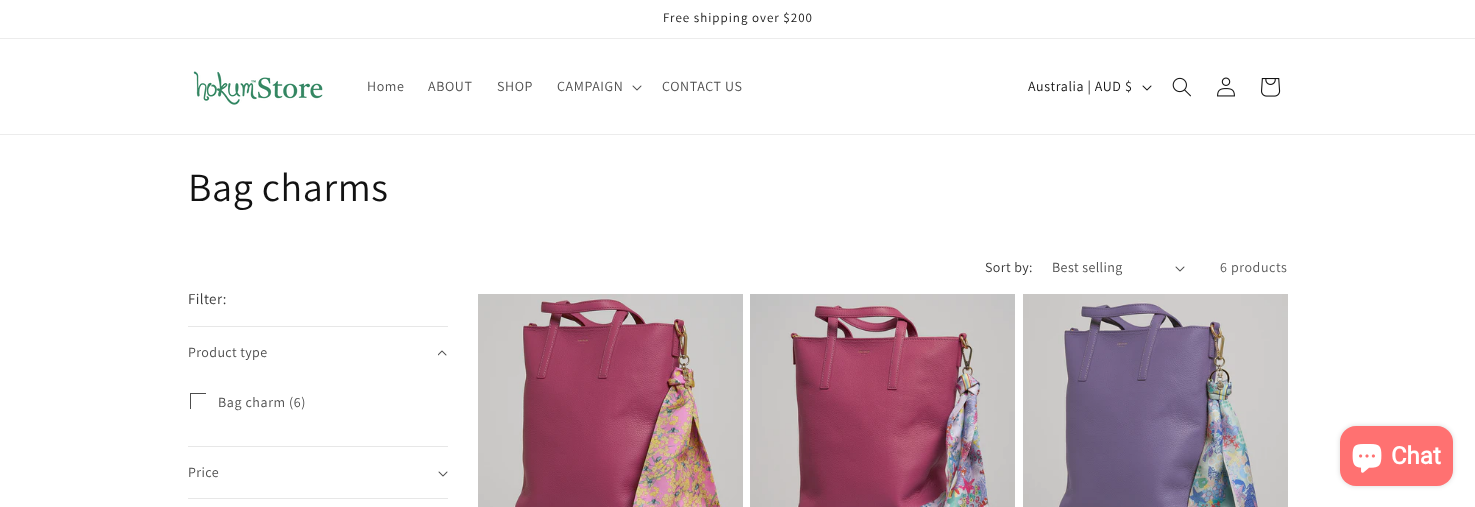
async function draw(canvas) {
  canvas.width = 1475
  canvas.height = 507
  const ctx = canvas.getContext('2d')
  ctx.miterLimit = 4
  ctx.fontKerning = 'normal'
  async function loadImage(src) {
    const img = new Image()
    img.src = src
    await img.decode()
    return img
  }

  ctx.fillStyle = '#fff'
  ctx.fillRect(0, 0, 1475, 507)
  ctx.fillStyle = '#ececec'
  ctx.fillRect(0, 38, 1475, 1)
  ctx.letterSpacing = '1px'
  ctx.font = '13px Assistant'
  ctx.fillStyle = '#121212'
  ctx.fillText('Free shipping over $200', 663, 22)
  ctx.fillStyle = '#ececec'
  ctx.fillRect(0, 134, 1475, 1)
  ctx.drawImage(await loadImage('image0.png'), 193, 71, 130, 34)
  ctx.letterSpacing = '0.6px'
  ctx.font = '14px Assistant'
  ctx.fillStyle = '#4d4d4d'
  ctx.fillText('Home', 367, 91)
  ctx.fillText('ABOUT', 428, 91)
  ctx.fillText('SHOP', 497, 91)
  ctx.fillText('CAMPAIGN', 557, 91)
  ctx.drawImage(await loadImage('image1.png'), 632, 85, 10, 6)
  ctx.fillText('CONTACT US', 662, 91)
  ctx.fillStyle = '#121212'
  ctx.fillText('Australia | AUD $', 1028, 91)
  ctx.drawImage(await loadImage('image2.png'), 1142, 85, 10, 6)
  ctx.drawImage(await loadImage('image3.png'), 1172, 77, 19, 20)
  ctx.drawImage(await loadImage('image4.png'), 1217, 77, 18, 20)
  ctx.drawImage(await loadImage('image5.png'), 1261, 78, 20, 19)
  ctx.font = '40px Assistant'
  ctx.fillText('Bag charms', 188, 201)
  ctx.letterSpacing = '0.4px'
  ctx.font = '14px Assistant'
  ctx.fillStyle = '#363636'
  ctx.fillText('Sort by:', 985, 272)
  ctx.fillStyle = '#4d4d4d'
  ctx.fillText('Best selling', 1052, 272)
  ctx.drawImage(await loadImage('image1.png'), 1175, 266, 10, 6)
  ctx.letterSpacing = '0.6px'
  ctx.fillStyle = '#595959'
  ctx.fillText('6 products', 1220, 272)
  ctx.letterSpacing = '0.4px'
  ctx.font = '15px Assistant'
  ctx.fillStyle = '#363636'
  ctx.fillText('Filter:', 188, 304)
  ctx.fillStyle = '#e7e7e7'
  ctx.fillRect(188, 326, 260, 1)
  ctx.font = '14px Assistant'
  ctx.fillStyle = '#4d4d4d'
  ctx.fillText('Product type', 188, 357)
  ctx.drawImage(await loadImage('image6.png'), 438, 350, 9, 6)
  ctx.save()
  ctx.beginPath()
  ctx.rect(190, 393, 16, 16)
  ctx.clip()
  ctx.strokeStyle = '#4d4d4d'
  ctx.strokeRect(190.5, 393.5, 16, 16)
  ctx.restore()
  ctx.letterSpacing = '0.6px'
  ctx.fillText('Bag charm (6)', 218, 407)
  ctx.fillStyle = '#e7e7e7'
  ctx.fillRect(188, 446, 260, 1)
  ctx.letterSpacing = '0.4px'
  ctx.fillStyle = '#4d4d4d'
  ctx.fillText('Price', 188, 477)
  ctx.drawImage(await loadImage('image1.png'), 438, 471, 10, 6)
  ctx.fillStyle = '#e7e7e7'
  ctx.fillRect(188, 498, 260, 1)
  ctx.drawImage(await loadImage('image7.png'), 478, 294, 265, 213)
  ctx.drawImage(await loadImage('image8.png'), 750, 294, 265, 213)
  ctx.drawImage(await loadImage('image9.png'), 1023, 294, 265, 213)
  ctx.fillStyle = '#00000026'
  ctx.filter = 'blur(2.5px)'
  ctx.beginPath()
  ctx.roundRect(1340, 426, 113, 60, 16)
  ctx.fill()
  ctx.filter = 'none'
  ctx.fillStyle = '#ff7171'
  ctx.beginPath()
  ctx.roundRect(1340, 426, 113, 60, 16)
  ctx.fill()
  ctx.drawImage(await loadImage('image10.png'), 1352, 444, 30, 29)
  ctx.letterSpacing = '0px'
  ctx.font = 'bold 24px Roboto'
  ctx.fillStyle = '#fff'
  ctx.fillText('Chat', 1391, 464)
}

draw(document.querySelector('canvas'))
